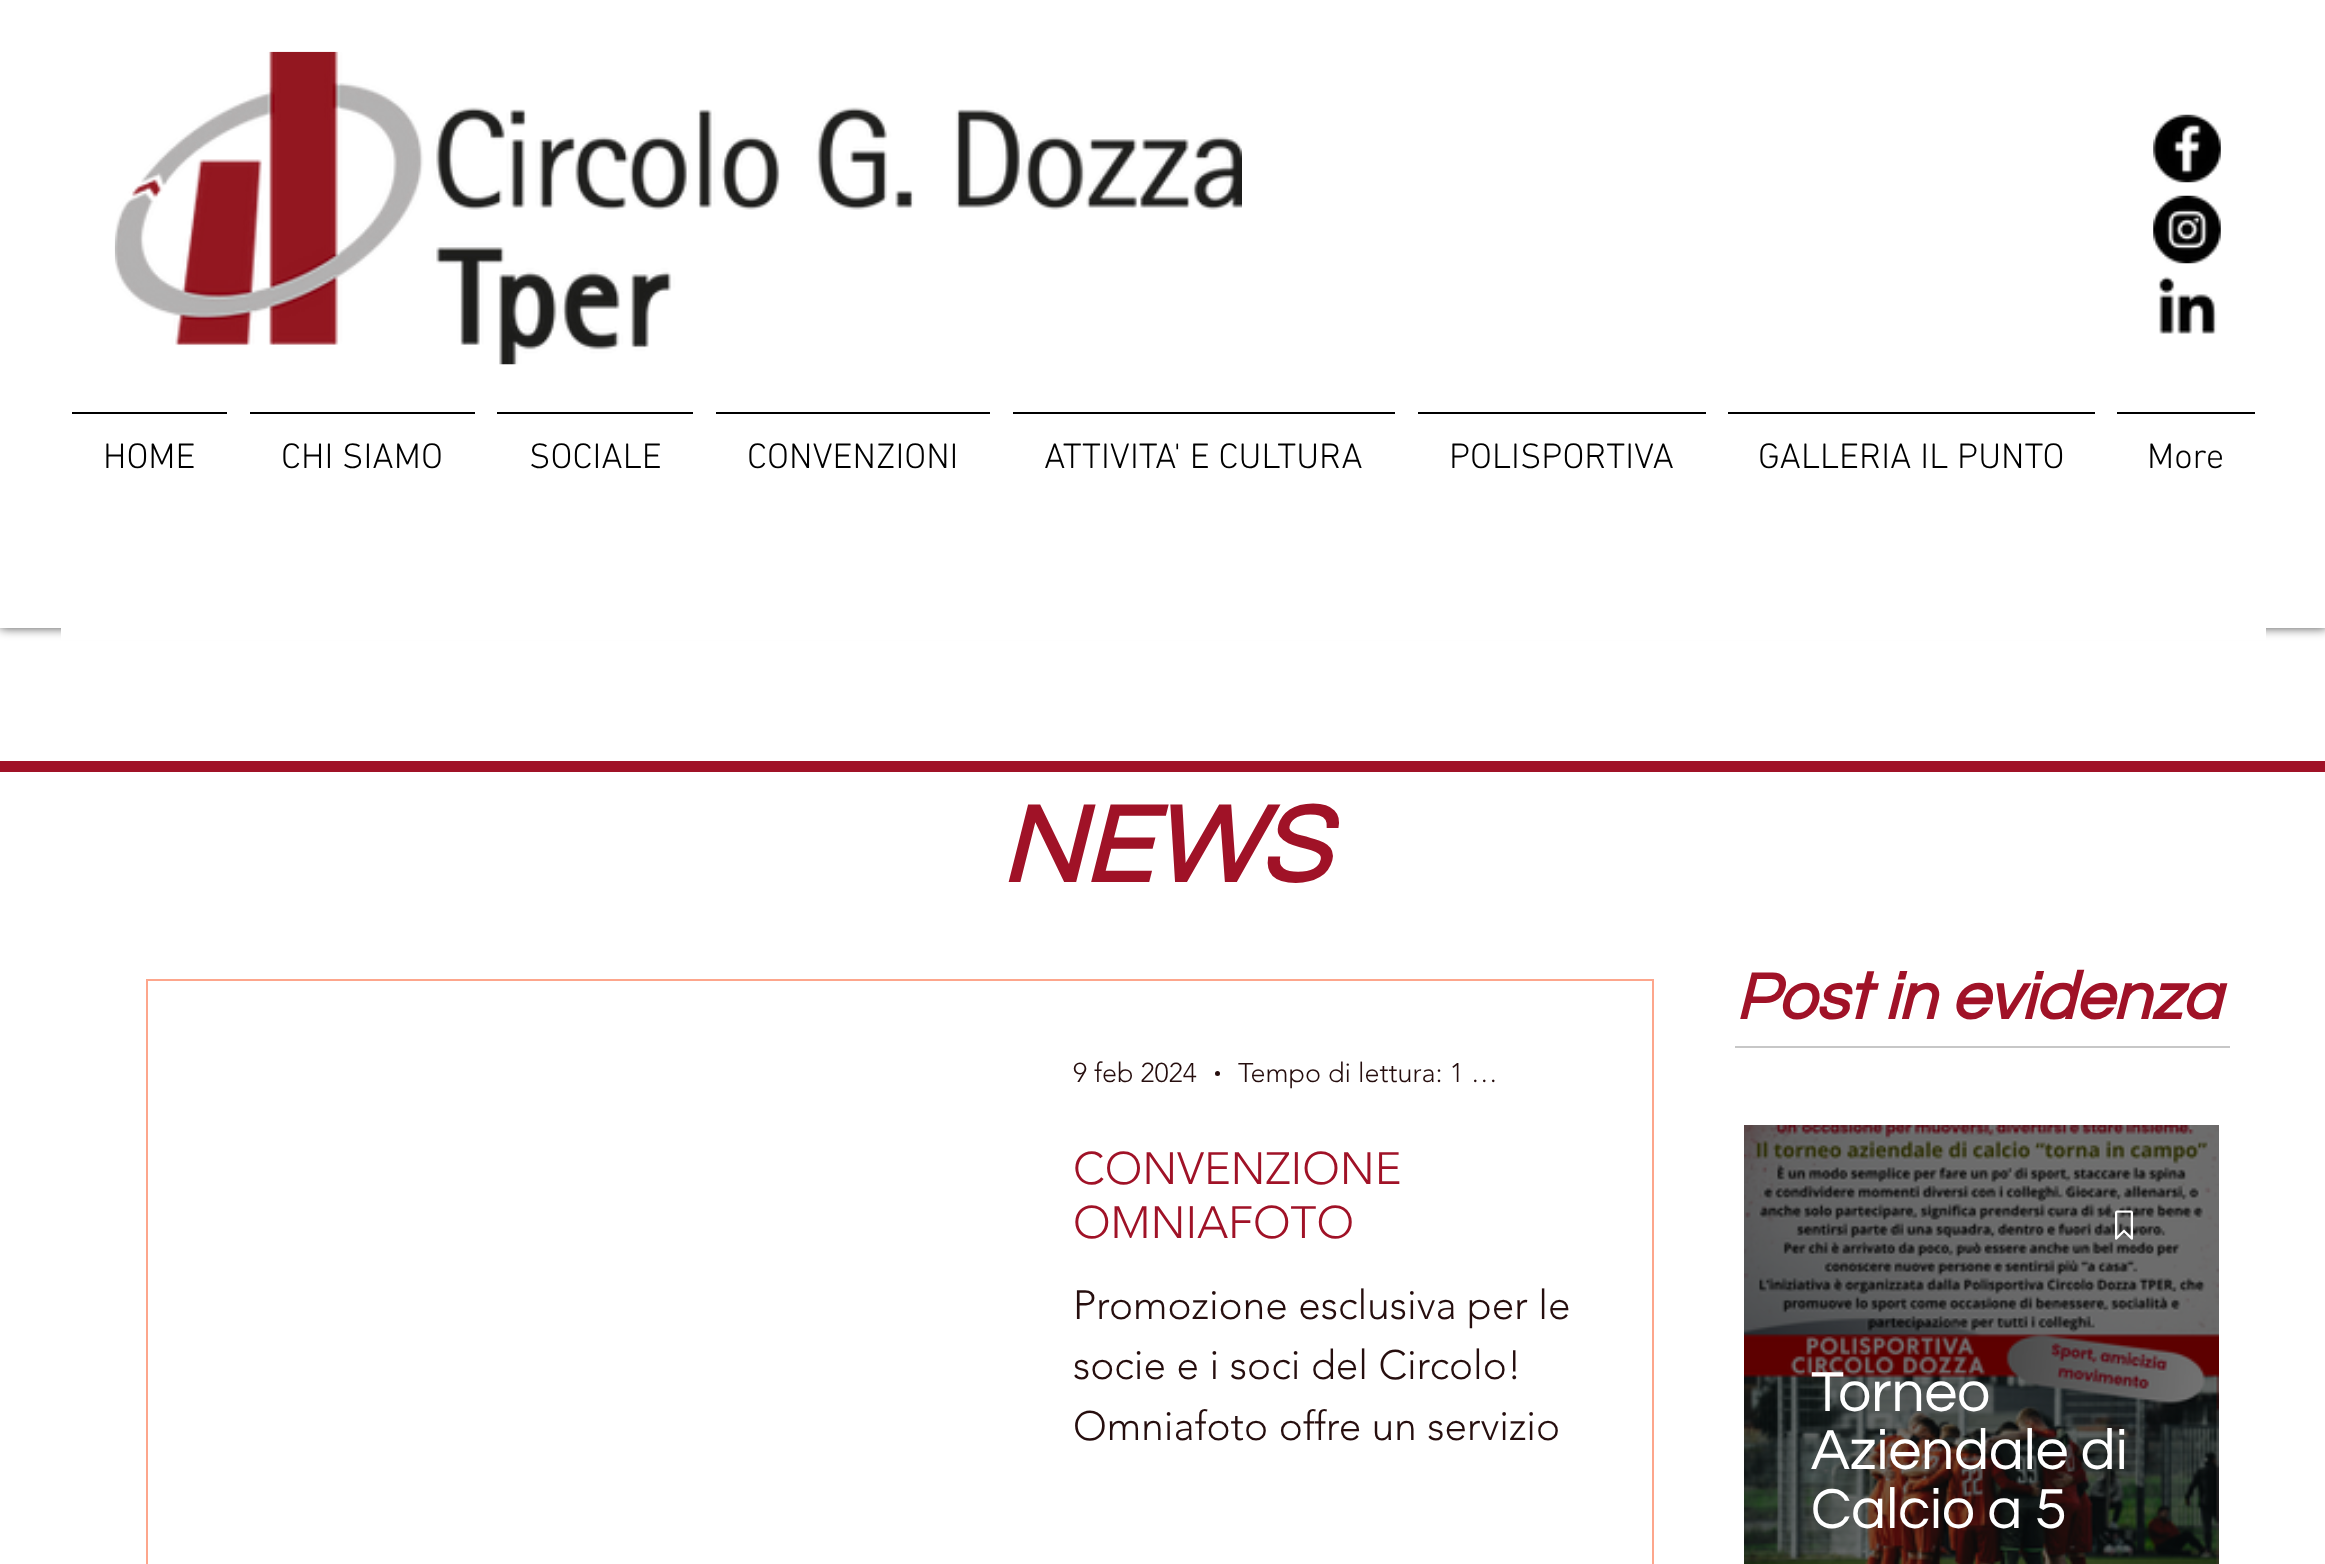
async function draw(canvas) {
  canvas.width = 2325
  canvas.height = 1564
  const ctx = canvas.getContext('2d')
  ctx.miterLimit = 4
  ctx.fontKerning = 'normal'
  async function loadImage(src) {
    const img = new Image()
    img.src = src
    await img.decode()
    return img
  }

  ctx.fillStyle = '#fff'
  ctx.fillRect(0, 0, 2325, 1564)
  ctx.fillStyle = '#000000b3'
  ctx.filter = 'blur(5.5px)'
  ctx.beginPath()
  ctx.rect(0, 0, 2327, 628)
  ctx.fill()
  ctx.filter = 'none'
  ctx.fillStyle = '#fff'
  ctx.fillRect(0, 0, 2325, 628)
  ctx.drawImage(await loadImage('image0.png'), 114, 51, 1128, 314)
  ctx.drawImage(await loadImage('image1.png'), 2153, 114, 68, 69)
  ctx.drawImage(await loadImage('image2.png'), 2153, 195, 68, 69)
  ctx.drawImage(await loadImage('image3.png'), 2158, 276, 59, 58)
  ctx.fillStyle = '#000'
  ctx.fillRect(72, 412, 155, 2)
  ctx.font = '300 36px "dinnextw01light"'
  ctx.fillText('HOME', 103, 468)
  ctx.fillRect(250, 412, 225, 2)
  ctx.fillText('CHI SIAMO', 281, 468)
  ctx.fillRect(497, 412, 196, 2)
  ctx.fillText('SOCIALE', 529, 468)
  ctx.fillRect(716, 412, 274, 2)
  ctx.fillText('CONVENZIONI', 747, 468)
  ctx.fillRect(1013, 412, 382, 2)
  ctx.fillText('ATTIVITA\' E CULTURA', 1044, 468)
  ctx.fillRect(1418, 412, 288, 2)
  ctx.fillText('POLISPORTIVA', 1449, 468)
  ctx.fillRect(1728, 412, 367, 2)
  ctx.fillText('GALLERIA IL PUNTO', 1758, 468)
  ctx.fillRect(2117, 412, 138, 2)
  ctx.fillText('More', 2147, 468)
  ctx.fillStyle = '#fff'
  ctx.fillRect(61, 628, 2205, 12)
  ctx.fillStyle = '#a01227'
  ctx.fillRect(0, 761, 2325, 11)
  ctx.font = 'italic bold 112.5px Questrial'
  ctx.fillText('NEWS', 1000, 882)
  ctx.font = 'italic bold 67.5px Questrial'
  ctx.fillText('Post in evidenza', 1735, 1019)
  ctx.fillStyle = '#c7c7c7'
  ctx.fillRect(1735, 1046, 495, 2)
  ctx.strokeStyle = '#fda68c'
  ctx.lineWidth = 2
  ctx.strokeRect(147, 980, 1506, 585)
  ctx.font = '300 27px "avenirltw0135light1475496"'
  ctx.fillStyle = '#260e0e'
  ctx.fillText('9 feb 2024', 1073, 1082)
  ctx.beginPath()
  ctx.arc(1217.5, 1073.5, 2.5, 0, 2 * Math.PI)
  ctx.fill()
  ctx.fillText('Tempo di lettura: 1 …', 1238, 1082)
  ctx.font = '300 45px "avenirltw0135light1475496"'
  ctx.fillStyle = '#a01227'
  ctx.fillText('CONVENZIONE', 1073, 1184)
  ctx.fillText('OMNIAFOTO', 1073, 1238)
  ctx.font = '300 40.5px "avenirltw0135light1475496"'
  ctx.fillStyle = '#260e0e'
  ctx.fillText('Promozione esclusiva per le', 1073, 1319)
  ctx.fillText('socie e i soci del Circolo!', 1073, 1379)
  ctx.fillText('Omniafoto offre un servizio', 1073, 1440)
  ctx.drawImage(await loadImage('image4.png'), 1744, 1125, 475, 439)
  ctx.drawImage(await loadImage('image5.png'), 2115, 1210, 18, 30)
  ctx.font = '58.5px Questrial'
  ctx.fillStyle = '#fff'
  ctx.fillText('Torneo', 1811, 1411)
  ctx.fillText('Aziendale di', 1811, 1469)
  ctx.fillText('Calcio a 5', 1811, 1528)
}

draw(document.querySelector('canvas'))
